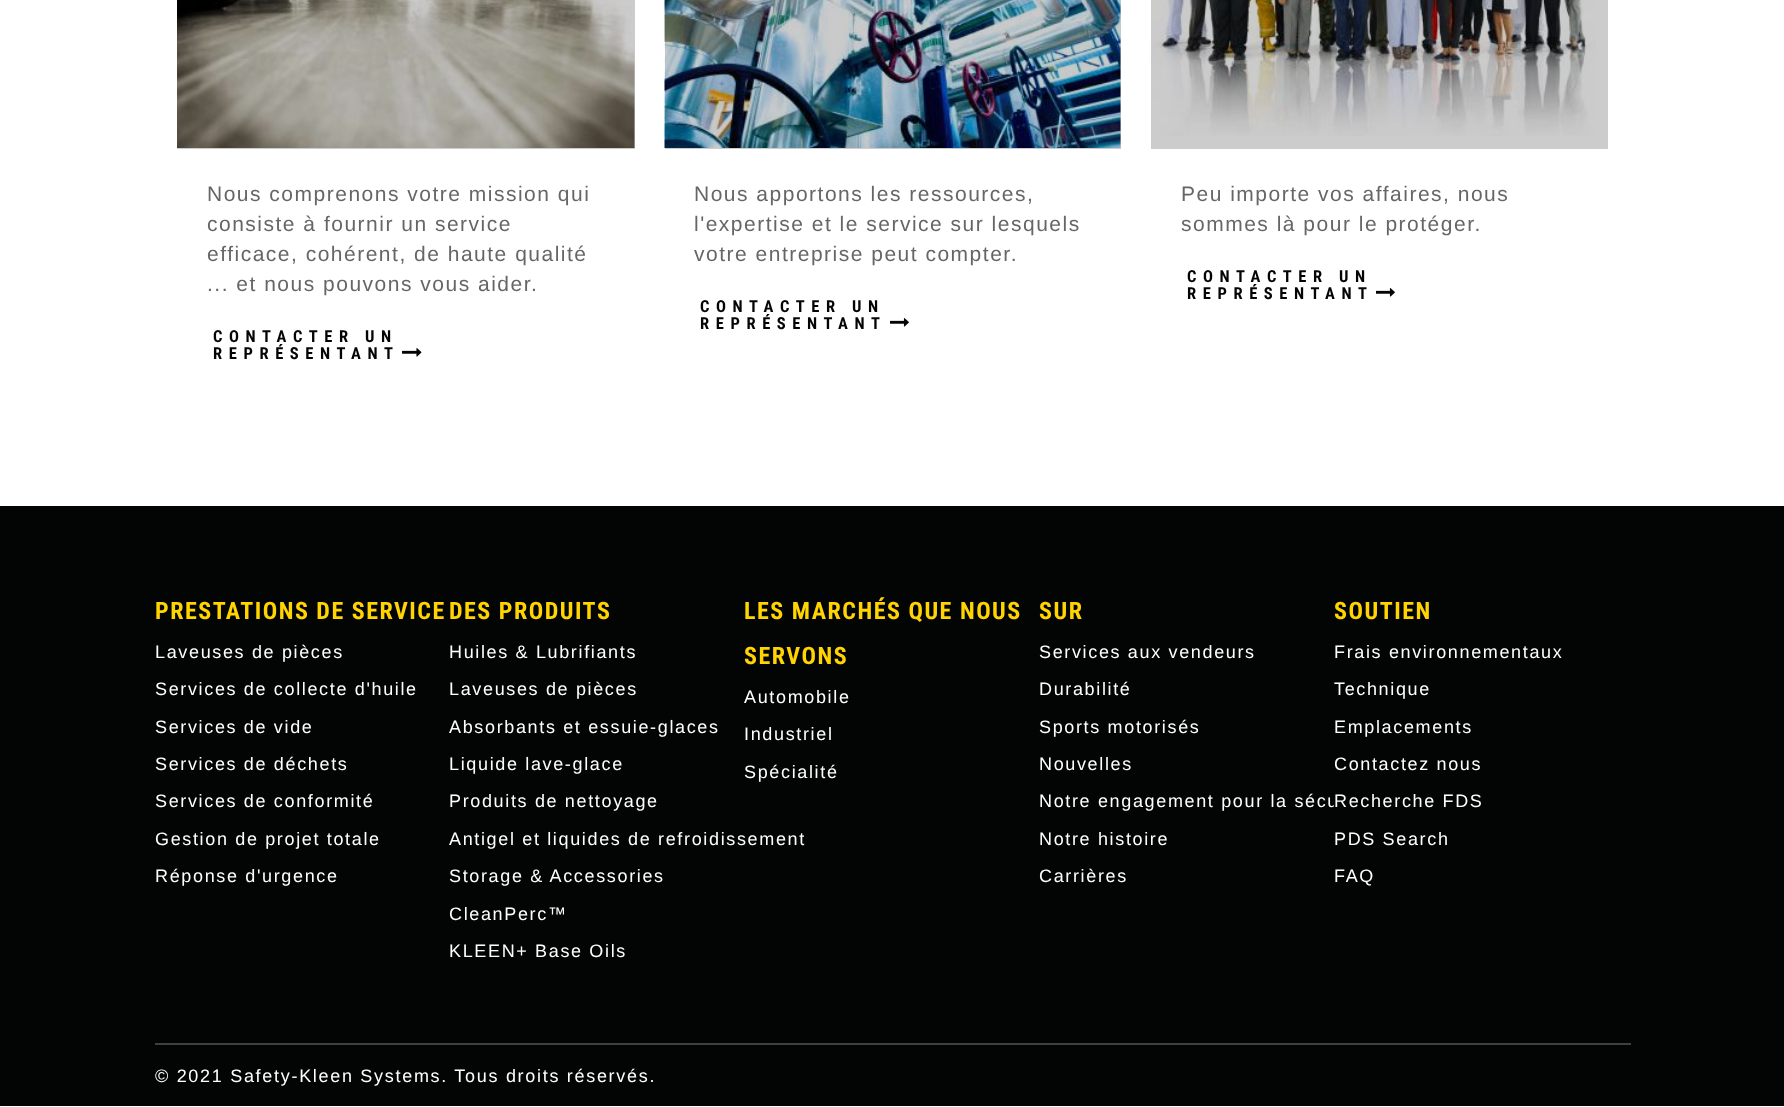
async function draw(canvas) {
  canvas.width = 1784
  canvas.height = 1107
  const ctx = canvas.getContext('2d')
  ctx.miterLimit = 4
  ctx.fontKerning = 'normal'
  async function loadImage(src) {
    const img = new Image()
    img.src = src
    await img.decode()
    return img
  }

  ctx.fillStyle = '#fff'
  ctx.fillRect(0, 0, 1784, 1107)
  ctx.fillStyle = '#ccc'
  ctx.fillRect(1151, 0, 457, 149)
  ctx.fillRect(665, 0, 456, 149)
  ctx.fillRect(177, 0, 458, 149)
  ctx.drawImage(await loadImage('image0.png'), 177, 0, 458, 148)
  ctx.letterSpacing = '1.5px'
  ctx.font = '21px Liberation Sans'
  ctx.fillStyle = '#666'
  ctx.fillText('Nous comprenons votre mission qui', 207, 201)
  ctx.fillText('consiste à fournir un service', 207, 231)
  ctx.fillText('efficace, cohérent, de haute qualité', 207, 261)
  ctx.fillText('... et nous pouvons vous aider.', 207, 291)
  ctx.letterSpacing = '6.6px'
  ctx.font = 'bold 16.5px Roboto Condensed'
  ctx.fillStyle = '#030404'
  ctx.fillText('CONTACTER UN', 213, 342)
  ctx.fillText('REPRÉSENTANT', 213, 359)
  ctx.drawImage(await loadImage('image1.png'), 402, 348, 20, 9)
  ctx.drawImage(await loadImage('image2.png'), 664, 0, 457, 148)
  ctx.letterSpacing = '1.5px'
  ctx.font = '21px Liberation Sans'
  ctx.fillStyle = '#666'
  ctx.fillText('Nous apportons les ressources,', 694, 201)
  ctx.fillText('l\'expertise et le service sur lesquels', 694, 231)
  ctx.fillText('votre entreprise peut compter.', 694, 261)
  ctx.letterSpacing = '6.6px'
  ctx.font = 'bold 16.5px Roboto Condensed'
  ctx.fillStyle = '#030404'
  ctx.fillText('CONTACTER UN', 700, 312)
  ctx.fillText('REPRÉSENTANT', 700, 329)
  ctx.drawImage(await loadImage('image3.png'), 890, 318, 19, 9)
  ctx.drawImage(await loadImage('image4.png'), 1151, 0, 445, 136)
  ctx.letterSpacing = '1.5px'
  ctx.font = '21px Liberation Sans'
  ctx.fillStyle = '#666'
  ctx.fillText('Peu importe vos affaires, nous', 1181, 201)
  ctx.fillText('sommes là pour le protéger.', 1181, 231)
  ctx.letterSpacing = '6.6px'
  ctx.font = 'bold 16.5px Roboto Condensed'
  ctx.fillStyle = '#030404'
  ctx.fillText('CONTACTER UN', 1187, 282)
  ctx.fillText('REPRÉSENTANT', 1187, 299)
  ctx.drawImage(await loadImage('image3.png'), 1376, 288, 19, 9)
  ctx.fillRect(0, 506, 1784, 600)
  ctx.letterSpacing = '1.5px'
  ctx.font = 'bold 24px Roboto Condensed'
  ctx.fillStyle = '#ffd400'
  ctx.fillText('PRESTATIONS DE SERVICE', 155, 619)
  ctx.letterSpacing = '1.65px'
  ctx.font = '18px Liberation Sans'
  ctx.fillStyle = '#fff'
  ctx.fillText('Laveuses de pièces', 155, 658)
  ctx.fillText('Services de collecte d\'huile', 155, 695)
  ctx.fillText('Services de vide', 155, 733)
  ctx.fillText('Services de déchets', 155, 770)
  ctx.fillText('Services de conformité', 155, 807)
  ctx.fillText('Gestion de projet totale', 155, 845)
  ctx.fillText('Réponse d\'urgence', 155, 882)
  ctx.letterSpacing = '1.5px'
  ctx.font = 'bold 24px Roboto Condensed'
  ctx.fillStyle = '#ffd400'
  ctx.fillText('DES PRODUITS', 449, 619)
  ctx.letterSpacing = '1.65px'
  ctx.font = '18px Liberation Sans'
  ctx.fillStyle = '#fff'
  ctx.fillText('Huiles & Lubrifiants', 449, 658)
  ctx.fillText('Laveuses de pièces', 449, 695)
  ctx.fillText('Absorbants et essuie-glaces', 449, 733)
  ctx.fillText('Liquide lave-glace', 449, 770)
  ctx.fillText('Produits de nettoyage', 449, 807)
  ctx.fillText('Antigel et liquides de refroidissement', 449, 845)
  ctx.fillText('Storage & Accessories', 449, 882)
  ctx.fillText('CleanPerc™', 449, 920)
  ctx.fillText('KLEEN+ Base Oils', 449, 957)
  ctx.letterSpacing = '1.5px'
  ctx.font = 'bold 24px Roboto Condensed'
  ctx.fillStyle = '#ffd400'
  ctx.fillText('LES MARCHÉS QUE NOUS', 744, 619)
  ctx.fillText('SERVONS', 744, 664)
  ctx.letterSpacing = '1.65px'
  ctx.font = '18px Liberation Sans'
  ctx.fillStyle = '#fff'
  ctx.fillText('Automobile', 744, 703)
  ctx.fillText('Industriel', 744, 740)
  ctx.fillText('Spécialité', 744, 778)
  ctx.letterSpacing = '1.5px'
  ctx.font = 'bold 24px Roboto Condensed'
  ctx.fillStyle = '#ffd400'
  ctx.fillText('SUR', 1039, 619)
  ctx.letterSpacing = '1.65px'
  ctx.font = '18px Liberation Sans'
  ctx.fillStyle = '#fff'
  ctx.fillText('Services aux vendeurs', 1039, 658)
  ctx.fillText('Durabilité', 1039, 695)
  ctx.fillText('Sports motorisés', 1039, 733)
  ctx.fillText('Nouvelles', 1039, 770)
  ctx.fillText('Notre engagement pour la sécu', 1039, 807)
  ctx.fillText('Notre histoire', 1039, 845)
  ctx.fillText('Carrières', 1039, 882)
  ctx.letterSpacing = '1.5px'
  ctx.font = 'bold 24px Roboto Condensed'
  ctx.fillStyle = '#ffd400'
  ctx.fillText('SOUTIEN', 1334, 619)
  ctx.fillStyle = '#030404'
  ctx.beginPath()
  ctx.roundRect(1334, 633, 295, 275, [0, 0, 6, 6])
  ctx.fill()
  ctx.letterSpacing = '1.65px'
  ctx.font = '18px Liberation Sans'
  ctx.fillStyle = '#fff'
  ctx.fillText('Frais environnementaux', 1334, 658)
  ctx.fillText('Technique', 1334, 695)
  ctx.fillText('Emplacements', 1334, 733)
  ctx.fillText('Contactez nous', 1334, 770)
  ctx.fillText('Recherche FDS', 1334, 807)
  ctx.fillText('PDS Search', 1334, 845)
  ctx.fillText('FAQ', 1334, 882)
  ctx.fillStyle = '#3f3f3f'
  ctx.fillRect(155, 1043, 1476, 2)
  ctx.letterSpacing = '1.7px'
  ctx.fillStyle = '#fff'
  ctx.fillText('© 2021 Safety-Kleen Systems. Tous droits réservés.', 155, 1082)
}

draw(document.querySelector('canvas'))
